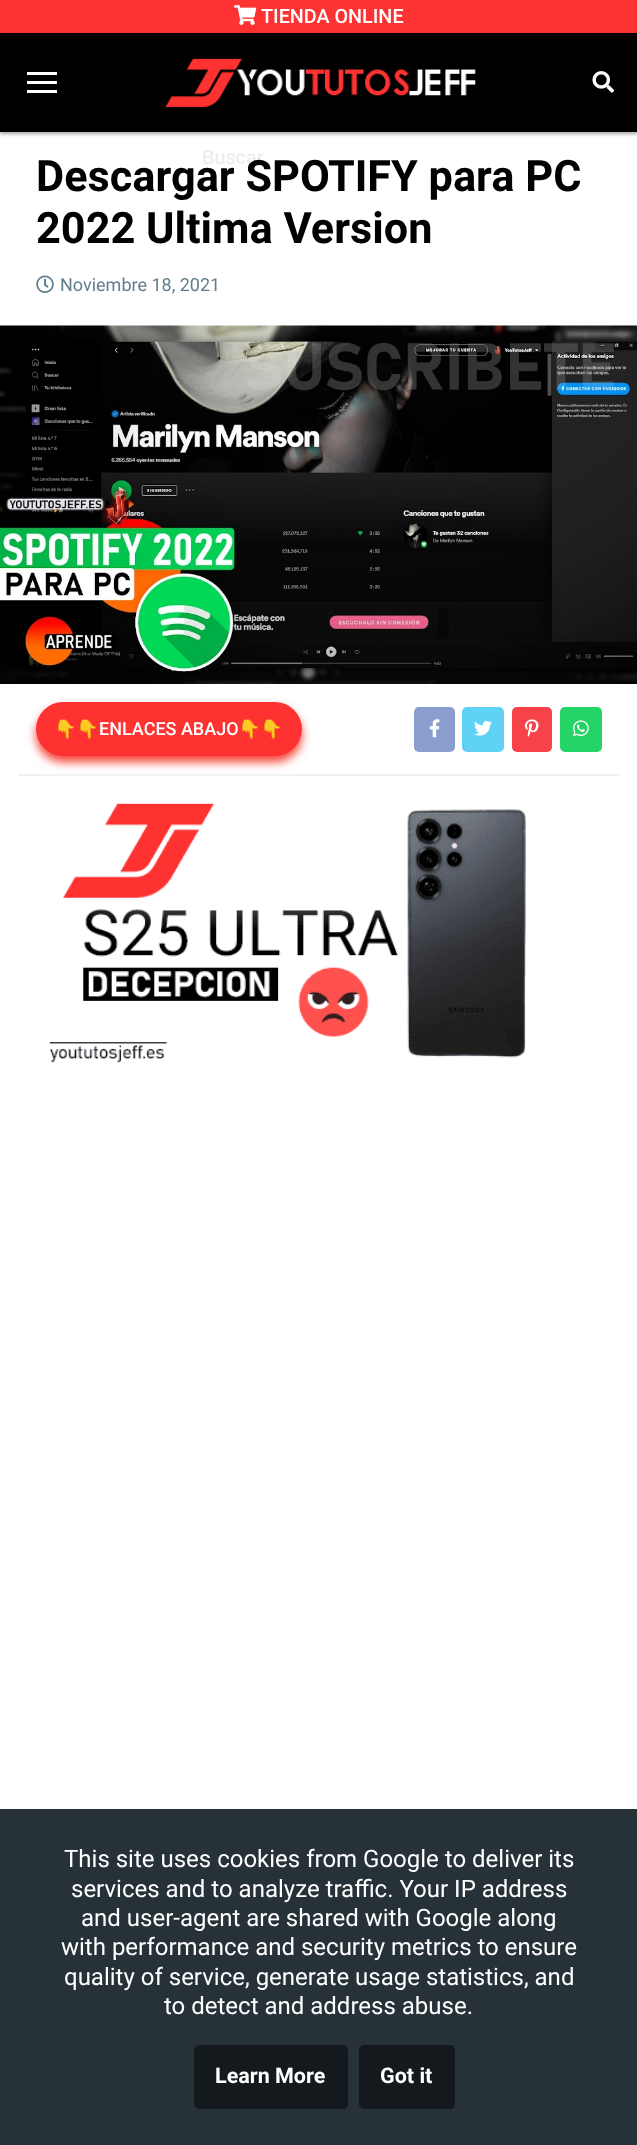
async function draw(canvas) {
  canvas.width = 637
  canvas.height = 2145
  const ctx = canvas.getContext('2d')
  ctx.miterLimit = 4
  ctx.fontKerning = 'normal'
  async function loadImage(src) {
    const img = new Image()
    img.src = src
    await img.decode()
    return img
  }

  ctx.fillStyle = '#fff'
  ctx.fillRect(0, 0, 637, 2145)
  ctx.fillStyle = '#fe3232'
  ctx.fillRect(0, 0, 637, 33)
  ctx.drawImage(await loadImage('image0.png'), 234, 5, 23, 20)
  ctx.font = '500 19.75px Roboto'
  ctx.fillStyle = '#fff'
  ctx.fillText('TIENDA ONLINE', 261, 23)
  ctx.fillStyle = '#0000003d'
  ctx.filter = 'blur(1.5px)'
  ctx.beginPath()
  ctx.rect(0, 35, 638, 99)
  ctx.fill()
  ctx.filter = 'none'
  ctx.fillStyle = '#0000001f'
  ctx.filter = 'blur(2px)'
  ctx.beginPath()
  ctx.rect(0, 35, 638, 99)
  ctx.fill()
  ctx.filter = 'none'
  ctx.fillStyle = '#000'
  ctx.fillRect(0, 33, 637, 99)
  ctx.drawImage(await loadImage('image1.png'), 165, 58, 311, 50)
  ctx.fillStyle = '#fff'
  ctx.fillRect(27, 81, 30, 3)
  ctx.fillRect(27, 72, 30, 3)
  ctx.fillRect(27, 90, 30, 3)
  ctx.drawImage(await loadImage('image2.png'), 592, 71, 23, 22)
  ctx.fillStyle = '#ededed'
  ctx.fillText('Buscar', 202, 164)
  ctx.font = 'bold 43.25px Roboto'
  ctx.fillStyle = '#010101'
  ctx.fillText('Descargar SPOTIFY para PC', 36, 191)
  ctx.fillText('2022 Ultima Version', 36, 243)
  ctx.drawImage(await loadImage('image3.png'), 36, 275, 18, 18)
  ctx.font = '18px Roboto'
  ctx.fillStyle = '#607d8b'
  ctx.fillText('Noviembre 18, 2021', 60, 291)
  ctx.drawImage(await loadImage('image4.png'), 0, 325, 637, 359)
  ctx.fillStyle = '#f2f2f2'
  ctx.fillRect(18, 774, 602, 2)
  ctx.fillStyle = '#f44336'
  ctx.filter = 'blur(5px)'
  ctx.beginPath()
  ctx.roundRect(36, 708, 266, 54, 27)
  ctx.fill()
  ctx.filter = 'none'
  ctx.fillStyle = '#ff3232'
  ctx.beginPath()
  ctx.roundRect(36, 702, 266, 54, 27)
  ctx.fill()
  ctx.font = '18px Noto Color Emoji'
  ctx.fillStyle = '#fff'
  ctx.fillText('👇👇', 54, 735)
  ctx.font = '500 18px Roboto'
  ctx.fillText('ENLACES ABAJO', 99, 735)
  ctx.font = '18px Noto Color Emoji'
  ctx.fillText('👇👇', 238, 735)
  ctx.fillStyle = '#899dce'
  ctx.beginPath()
  ctx.roundRect(414, 707, 41, 45, 5)
  ctx.fill()
  ctx.drawImage(await loadImage('image5.png'), 429, 719, 11, 19)
  ctx.fillStyle = '#60d2f5'
  ctx.beginPath()
  ctx.roundRect(462, 707, 42, 45, 5)
  ctx.fill()
  ctx.drawImage(await loadImage('image6.png'), 474, 720, 18, 16)
  ctx.fillStyle = '#f74249'
  ctx.beginPath()
  ctx.roundRect(512, 707, 40, 45, 5)
  ctx.fill()
  ctx.drawImage(await loadImage('image7.png'), 525, 719, 14, 18)
  ctx.fillStyle = '#25d366'
  ctx.beginPath()
  ctx.roundRect(560, 707, 42, 45, 5)
  ctx.fill()
  ctx.drawImage(await loadImage('image8.png'), 573, 720, 16, 17)
  ctx.drawImage(await loadImage('image9.png'), 39, 797, 556, 275)
  ctx.fillStyle = '#263238'
  ctx.fillRect(0, 1809, 637, 336)
  ctx.font = '24px Roboto'
  ctx.fillStyle = '#fff'
  ctx.fillText('This site uses cookies from Google to deliver its', 64, 1867)
  ctx.fillText('services and to analyze traffic. Your IP address', 71, 1897)
  ctx.fillText('and user-agent are shared with Google along', 81, 1926)
  ctx.fillText('with performance and security metrics to ensure', 61, 1955)
  ctx.fillText('quality of service, generate usage statistics, and', 64, 1985)
  ctx.fillText('to detect and address abuse.', 164, 2014)
  ctx.fillStyle = '#13191c'
  ctx.beginPath()
  ctx.roundRect(194, 2045, 154, 64, 5)
  ctx.fill()
  ctx.font = 'bold 21.5px Roboto'
  ctx.fillStyle = '#fff'
  ctx.fillText('Learn More', 215, 2083)
  ctx.fillStyle = '#13191c'
  ctx.beginPath()
  ctx.roundRect(359, 2045, 96, 64, 5)
  ctx.fill()
  ctx.fillStyle = '#fff'
  ctx.fillText('Got it', 380, 2083)
}

draw(document.querySelector('canvas'))
